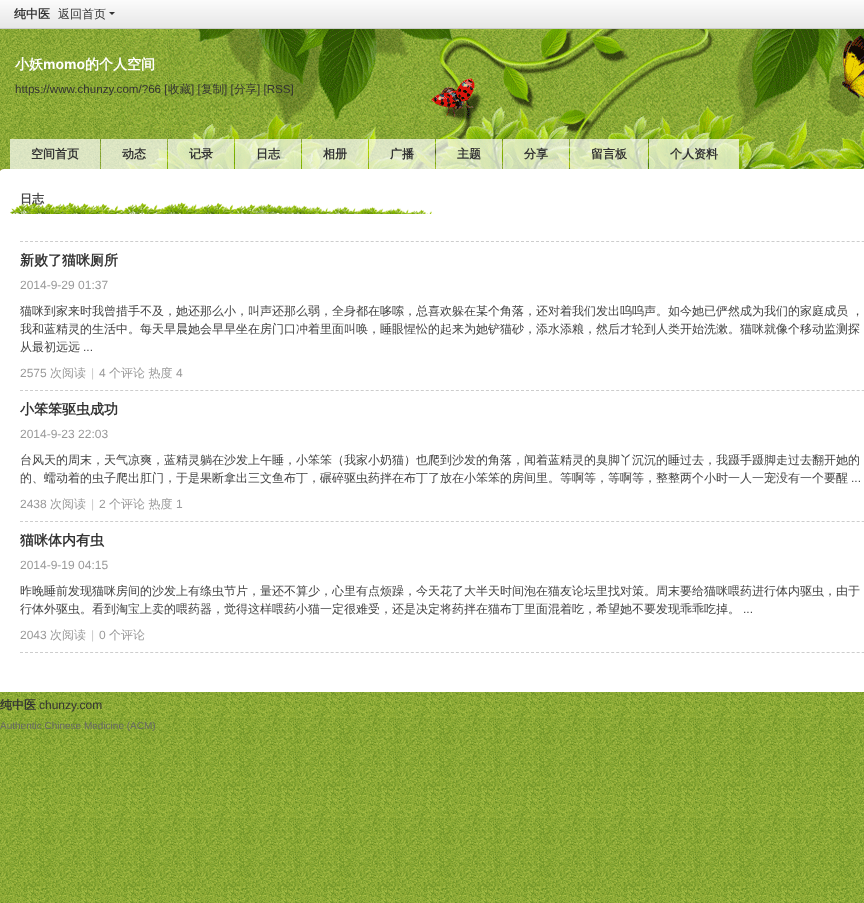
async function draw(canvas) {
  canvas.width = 864
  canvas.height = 903
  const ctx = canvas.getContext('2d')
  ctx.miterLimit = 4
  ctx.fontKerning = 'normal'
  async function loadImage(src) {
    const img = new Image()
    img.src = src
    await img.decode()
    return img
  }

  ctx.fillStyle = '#fff'
  ctx.fillRect(0, 0, 864, 903)
  ctx.drawImage(await loadImage('image0.png'), 0, 29, 864, 874)
  ctx.drawImage(await loadImage('image1.png'), 0, 0, 864, 28)
  ctx.fillStyle = '#cdcdcd'
  ctx.fillRect(0, 28, 864, 1)
  ctx.font = 'bold 12px WenQuanYi Zen Hei'
  ctx.fillStyle = '#333'
  ctx.fillText('纯中医', 14, 18)
  ctx.font = '500 12px WenQuanYi Zen Hei'
  ctx.fillText('返回首页', 58, 18)
  ctx.beginPath()
  ctx.moveTo(109, 12)
  ctx.lineTo(115, 12)
  ctx.lineTo(112, 15)
  ctx.closePath()
  ctx.fill()
  ctx.drawImage(await loadImage('image2.png'), 120, 29, 744, 140)
  ctx.font = 'bold 14px WenQuanYi Zen Hei'
  ctx.fillStyle = '#fff'
  ctx.fillText('小妖', 15, 69)
  ctx.font = 'bold 14px Liberation Sans'
  ctx.fillText('momo', 43, 69)
  ctx.font = 'bold 14px WenQuanYi Zen Hei'
  ctx.fillText('的个人空间', 85, 69)
  ctx.font = '11.6px Liberation Sans'
  ctx.fillStyle = '#333'
  ctx.fillText('https://www.chunzy.com/?66 [', 15, 93)
  ctx.font = '500 11.6px WenQuanYi Zen Hei'
  ctx.fillText('收藏', 168, 93)
  ctx.font = '11.6px Liberation Sans'
  ctx.fillText('] [', 191, 93)
  ctx.font = '500 11.6px WenQuanYi Zen Hei'
  ctx.fillText('复制', 201, 93)
  ctx.font = '11.6px Liberation Sans'
  ctx.fillText('] [', 224, 93)
  ctx.font = '500 11.6px WenQuanYi Zen Hei'
  ctx.fillText('分享', 234, 93)
  ctx.font = '11.6px Liberation Sans'
  ctx.fillText('] [RSS]', 257, 93)
  ctx.fillStyle = '#ffffffb3'
  ctx.fillRect(10, 139, 90, 30)
  ctx.font = 'bold 12px WenQuanYi Zen Hei'
  ctx.fillStyle = '#333'
  ctx.fillText('空间首页', 31, 158)
  ctx.fillStyle = '#ffffffb3'
  ctx.fillRect(101, 139, 66, 30)
  ctx.fillStyle = '#333'
  ctx.fillText('动态', 122, 158)
  ctx.fillStyle = '#ffffffb3'
  ctx.fillRect(168, 139, 66, 30)
  ctx.fillStyle = '#333'
  ctx.fillText('记录', 189, 158)
  ctx.fillStyle = '#ffffffb3'
  ctx.fillRect(235, 139, 66, 30)
  ctx.fillStyle = '#333'
  ctx.fillText('日志', 256, 158)
  ctx.fillStyle = '#ffffffb3'
  ctx.fillRect(302, 139, 66, 30)
  ctx.fillStyle = '#333'
  ctx.fillText('相册', 323, 158)
  ctx.fillStyle = '#ffffffb3'
  ctx.fillRect(369, 139, 66, 30)
  ctx.fillStyle = '#333'
  ctx.fillText('广播', 390, 158)
  ctx.fillStyle = '#ffffffb3'
  ctx.fillRect(436, 139, 66, 30)
  ctx.fillStyle = '#333'
  ctx.fillText('主题', 457, 158)
  ctx.fillStyle = '#ffffffb3'
  ctx.fillRect(503, 139, 66, 30)
  ctx.fillStyle = '#333'
  ctx.fillText('分享', 524, 158)
  ctx.fillStyle = '#ffffffb3'
  ctx.fillRect(570, 139, 78, 30)
  ctx.fillStyle = '#333'
  ctx.fillText('留言板', 591, 158)
  ctx.fillStyle = '#ffffffb3'
  ctx.fillRect(649, 139, 90, 30)
  ctx.fillStyle = '#333'
  ctx.fillText('个人资料', 670, 158)
  ctx.fillStyle = '#fff'
  ctx.fillRect(0, 169, 864, 523)
  ctx.drawImage(await loadImage('image3.png'), 0, 169, 4, 2)
  ctx.drawImage(await loadImage('image4.png'), 10, 202, 424, 12)
  ctx.fillStyle = '#444'
  ctx.fillText('日志', 20, 203)
  ctx.beginPath()
  ctx.moveTo(20, 241.5)
  ctx.lineTo(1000, 241.5)
  ctx.strokeStyle = '#cdcdcd'
  ctx.setLineDash([3, 2.01])
  ctx.stroke()
  ctx.beginPath()
  ctx.moveTo(20, 390.5)
  ctx.lineTo(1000, 390.5)
  ctx.stroke()
  ctx.font = 'bold 14px WenQuanYi Zen Hei'
  ctx.fillStyle = '#333'
  ctx.fillText('新败了猫咪厕所', 20, 265)
  ctx.font = '12px Liberation Sans'
  ctx.fillStyle = '#999'
  ctx.fillText('2014-9-29 01:37', 20, 289)
  ctx.font = '500 12px WenQuanYi Zen Hei'
  ctx.fillStyle = '#444'
  ctx.fillText('猫咪到家来时我曾措手不及，她还那么小，叫声还那么弱，全身都在哆嗦，总喜欢躲在某个角落，还对着我们发出呜呜声。如今她已俨然成为我们的家庭成员 ，', 20, 315)
  ctx.fillText('我和蓝精灵的生活中。每天早晨她会早早坐在房门口冲着里面叫唤，睡眼惺忪的起来为她铲猫砂，添水添粮，然后才轮到人类开始洗漱。猫咪就像个移动监测探', 20, 333)
  ctx.fillText('从最初远远', 20, 351)
  ctx.font = '12px Liberation Sans'
  ctx.fillText('...', 83, 351)
  ctx.fillStyle = '#999'
  ctx.fillText('2575', 20, 377)
  ctx.font = '500 12px WenQuanYi Zen Hei'
  ctx.fillText('次阅读', 50, 377)
  ctx.font = '12px Liberation Sans'
  ctx.fillStyle = '#ccc'
  ctx.fillText('|', 91, 377)
  ctx.fillStyle = '#999'
  ctx.fillText('4', 99, 377)
  ctx.font = '500 12px WenQuanYi Zen Hei'
  ctx.fillText('个评论 热度', 109, 377)
  ctx.font = '12px Liberation Sans'
  ctx.fillText('4', 176, 377)
  ctx.beginPath()
  ctx.moveTo(20, 521.5)
  ctx.lineTo(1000, 521.5)
  ctx.stroke()
  ctx.font = 'bold 14px WenQuanYi Zen Hei'
  ctx.fillStyle = '#333'
  ctx.fillText('小笨笨驱虫成功', 20, 414)
  ctx.font = '12px Liberation Sans'
  ctx.fillStyle = '#999'
  ctx.fillText('2014-9-23 22:03', 20, 438)
  ctx.font = '500 12px WenQuanYi Zen Hei'
  ctx.fillStyle = '#444'
  ctx.fillText('台风天的周末，天气凉爽，蓝精灵躺在沙发上午睡，小笨笨（我家小奶猫）也爬到沙发的角落，闻着蓝精灵的臭脚丫沉沉的睡过去，我蹑手蹑脚走过去翻开她的', 20, 464)
  ctx.fillText('的、蠕动着的虫子爬出肛门，于是果断拿出三文鱼布丁，碾碎驱虫药拌在布丁了放在小笨笨的房间里。等啊等，等啊等，整整两个小时一人一宠没有一个要醒', 20, 482)
  ctx.font = '12px Liberation Sans'
  ctx.fillText('...', 851, 482)
  ctx.fillStyle = '#999'
  ctx.fillText('2438', 20, 508)
  ctx.font = '500 12px WenQuanYi Zen Hei'
  ctx.fillText('次阅读', 50, 508)
  ctx.font = '12px Liberation Sans'
  ctx.fillStyle = '#ccc'
  ctx.fillText('|', 91, 508)
  ctx.fillStyle = '#999'
  ctx.fillText('2', 99, 508)
  ctx.font = '500 12px WenQuanYi Zen Hei'
  ctx.fillText('个评论 热度', 109, 508)
  ctx.font = '12px Liberation Sans'
  ctx.fillText('1', 176, 508)
  ctx.beginPath()
  ctx.moveTo(20, 652.5)
  ctx.lineTo(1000, 652.5)
  ctx.stroke()
  ctx.font = 'bold 14px WenQuanYi Zen Hei'
  ctx.fillStyle = '#333'
  ctx.fillText('猫咪体内有虫', 20, 545)
  ctx.font = '12px Liberation Sans'
  ctx.fillStyle = '#999'
  ctx.fillText('2014-9-19 04:15', 20, 569)
  ctx.font = '500 12px WenQuanYi Zen Hei'
  ctx.fillStyle = '#444'
  ctx.fillText('昨晚睡前发现猫咪房间的沙发上有绦虫节片，量还不算少，心里有点烦躁，今天花了大半天时间泡在猫友论坛里找对策。周末要给猫咪喂药进行体内驱虫，由于', 20, 595)
  ctx.fillText('行体外驱虫。看到淘宝上卖的喂药器，觉得这样喂药小猫一定很难受，还是决定将药拌在猫布丁里面混着吃，希望她不要发现乖乖吃掉。', 20, 613)
  ctx.font = '12px Liberation Sans'
  ctx.fillText('...', 743, 613)
  ctx.fillStyle = '#999'
  ctx.fillText('2043', 20, 639)
  ctx.font = '500 12px WenQuanYi Zen Hei'
  ctx.fillText('次阅读', 50, 639)
  ctx.font = '12px Liberation Sans'
  ctx.fillStyle = '#ccc'
  ctx.fillText('|', 91, 639)
  ctx.fillStyle = '#999'
  ctx.fillText('0', 99, 639)
  ctx.font = '500 12px WenQuanYi Zen Hei'
  ctx.fillText('个评论', 109, 639)
  ctx.font = 'bold 12px WenQuanYi Zen Hei'
  ctx.fillStyle = '#333'
  ctx.fillText('纯中医', 0, 709)
  ctx.font = '12px Liberation Sans'
  ctx.fillText('chunzy.com', 39, 709)
  ctx.font = '10px Liberation Sans'
  ctx.fillStyle = '#666'
  ctx.fillText('Authentic Chinese Medicine (ACM)', 0, 729)
}

draw(document.querySelector('canvas'))
